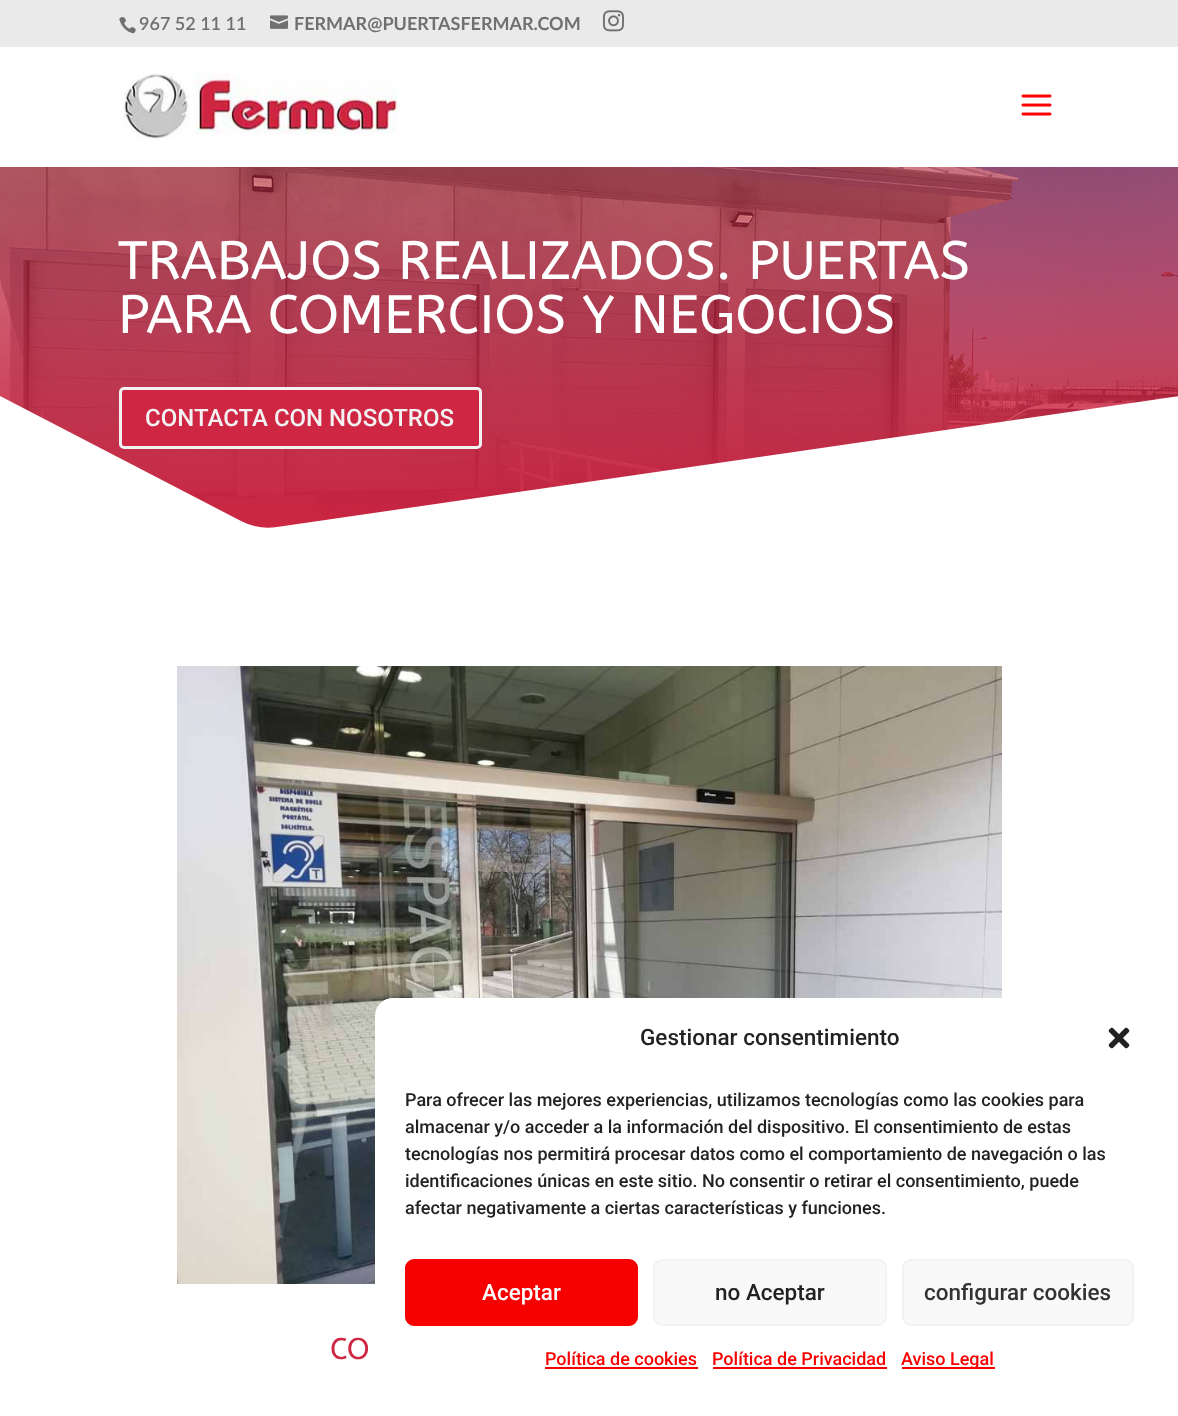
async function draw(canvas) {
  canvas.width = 1178
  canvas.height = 1416
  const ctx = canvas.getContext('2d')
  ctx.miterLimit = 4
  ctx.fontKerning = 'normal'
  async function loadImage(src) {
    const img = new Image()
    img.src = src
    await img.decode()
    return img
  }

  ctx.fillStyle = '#fff'
  ctx.fillRect(0, 0, 1178, 1416)
  ctx.fillStyle = '#eaeaea'
  ctx.fillRect(0, 0, 1178, 47)
  ctx.drawImage(await loadImage('image0.png'), 119, 16, 17, 18)
  ctx.font = '600 18px Lato'
  ctx.fillStyle = '#707070'
  ctx.fillText('967 52 11 11', 139, 30)
  ctx.drawImage(await loadImage('image1.png'), 270, 15, 18, 14)
  ctx.font = 'bold 18px Lato'
  ctx.fillText('FERMAR@PUERTASFERMAR.COM', 294, 30)
  ctx.drawImage(await loadImage('image2.png'), 603, 10, 21, 22)
  ctx.drawImage(await loadImage('image3.png'), 123, 73, 275, 67)
  ctx.drawImage(await loadImage('image4.png'), 1021, 94, 31, 22)
  ctx.drawImage(await loadImage('image5.png'), 0, 167, 1178, 361)
  ctx.font = '54px ABeeZee'
  ctx.fillStyle = '#fff'
  ctx.fillText('TRABAJOS REALIZADOS. PUERTAS', 118, 279)
  ctx.fillText('PARA COMERCIOS Y NEGOCIOS', 118, 333)
  ctx.fillStyle = '#cf2643'
  ctx.beginPath()
  ctx.roundRect(120.5, 388.5, 360, 59, 3.5)
  ctx.fill()
  ctx.strokeStyle = '#f2f2f2'
  ctx.lineWidth = 3
  ctx.stroke()
  ctx.font = '500 24px Roboto'
  ctx.fillStyle = '#f2f2f2'
  ctx.fillText('CONTACTA CON NOSOTROS', 145, 426)
  ctx.fillStyle = '#fff'
  ctx.beginPath()
  ctx.moveTo(0, 396)
  ctx.lineTo(241, 521)
  ctx.bezierCurveTo(253, 527, 265, 529, 277, 527)
  ctx.lineTo(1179, 396)
  ctx.lineTo(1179, 546)
  ctx.lineTo(0, 546)
  ctx.closePath()
  ctx.fill()
  ctx.drawImage(await loadImage('image6.png'), 177, 666, 825, 618)
  ctx.font = '30px ABeeZee'
  ctx.fillStyle = '#cf2643'
  ctx.fillText('CO', 330, 1359)
  ctx.fillStyle = '#fff'
  ctx.beginPath()
  ctx.roundRect(375, 998, 789, 403, 18)
  ctx.fill()
  ctx.font = '500 22.5px Roboto'
  ctx.fillStyle = '#222'
  ctx.fillText('Gestionar consentimiento', 640, 1045)
  ctx.drawImage(await loadImage('image7.png'), 1108, 1027, 22, 22)
  ctx.font = '500 18px Roboto'
  ctx.fillText('Para ofrecer las mejores experiencias, utilizamos tecnologías como las cookies para', 405, 1106)
  ctx.fillText('almacenar y/o acceder a la información del dispositivo. El consentimiento de estas', 405, 1133)
  ctx.fillText('tecnologías nos permitirá procesar datos como el comportamiento de navegación o las', 405, 1160)
  ctx.fillText('identificaciones únicas en este sitio. No consentir o retirar el consentimiento, puede', 405, 1187)
  ctx.fillText('afectar negativamente a ciertas características y funciones.', 405, 1214)
  ctx.fillStyle = '#f70000'
  ctx.beginPath()
  ctx.roundRect(406, 1260, 231, 65, 8)
  ctx.fill()
  ctx.strokeStyle = '#f70000'
  ctx.lineWidth = 2
  ctx.stroke()
  ctx.font = '500 22.5px Roboto'
  ctx.fillStyle = '#fff'
  ctx.fillText('Aceptar', 482, 1300)
  ctx.fillStyle = '#f9f9f9'
  ctx.beginPath()
  ctx.roundRect(654, 1260, 232, 65, 8)
  ctx.fill()
  ctx.strokeStyle = '#f2f2f2'
  ctx.stroke()
  ctx.fillStyle = '#222'
  ctx.fillText('no Aceptar', 715, 1300)
  ctx.fillStyle = '#f9f9f9'
  ctx.beginPath()
  ctx.roundRect(903, 1260, 230, 65, 8)
  ctx.fill()
  ctx.stroke()
  ctx.fillStyle = '#333'
  ctx.fillText('configurar cookies', 924, 1300)
  ctx.font = '500 18px Roboto'
  ctx.fillStyle = '#f70000'
  ctx.fillText('Política de cookies', 545, 1365)
  ctx.fillRect(545, 1367, 153, 2)
  ctx.fillText('Política de Privacidad', 712, 1365)
  ctx.fillRect(713, 1367, 174, 2)
  ctx.fillRect(902, 1367, 93, 2)
  ctx.fillText('Aviso Legal', 901, 1365)
}

draw(document.querySelector('canvas'))
